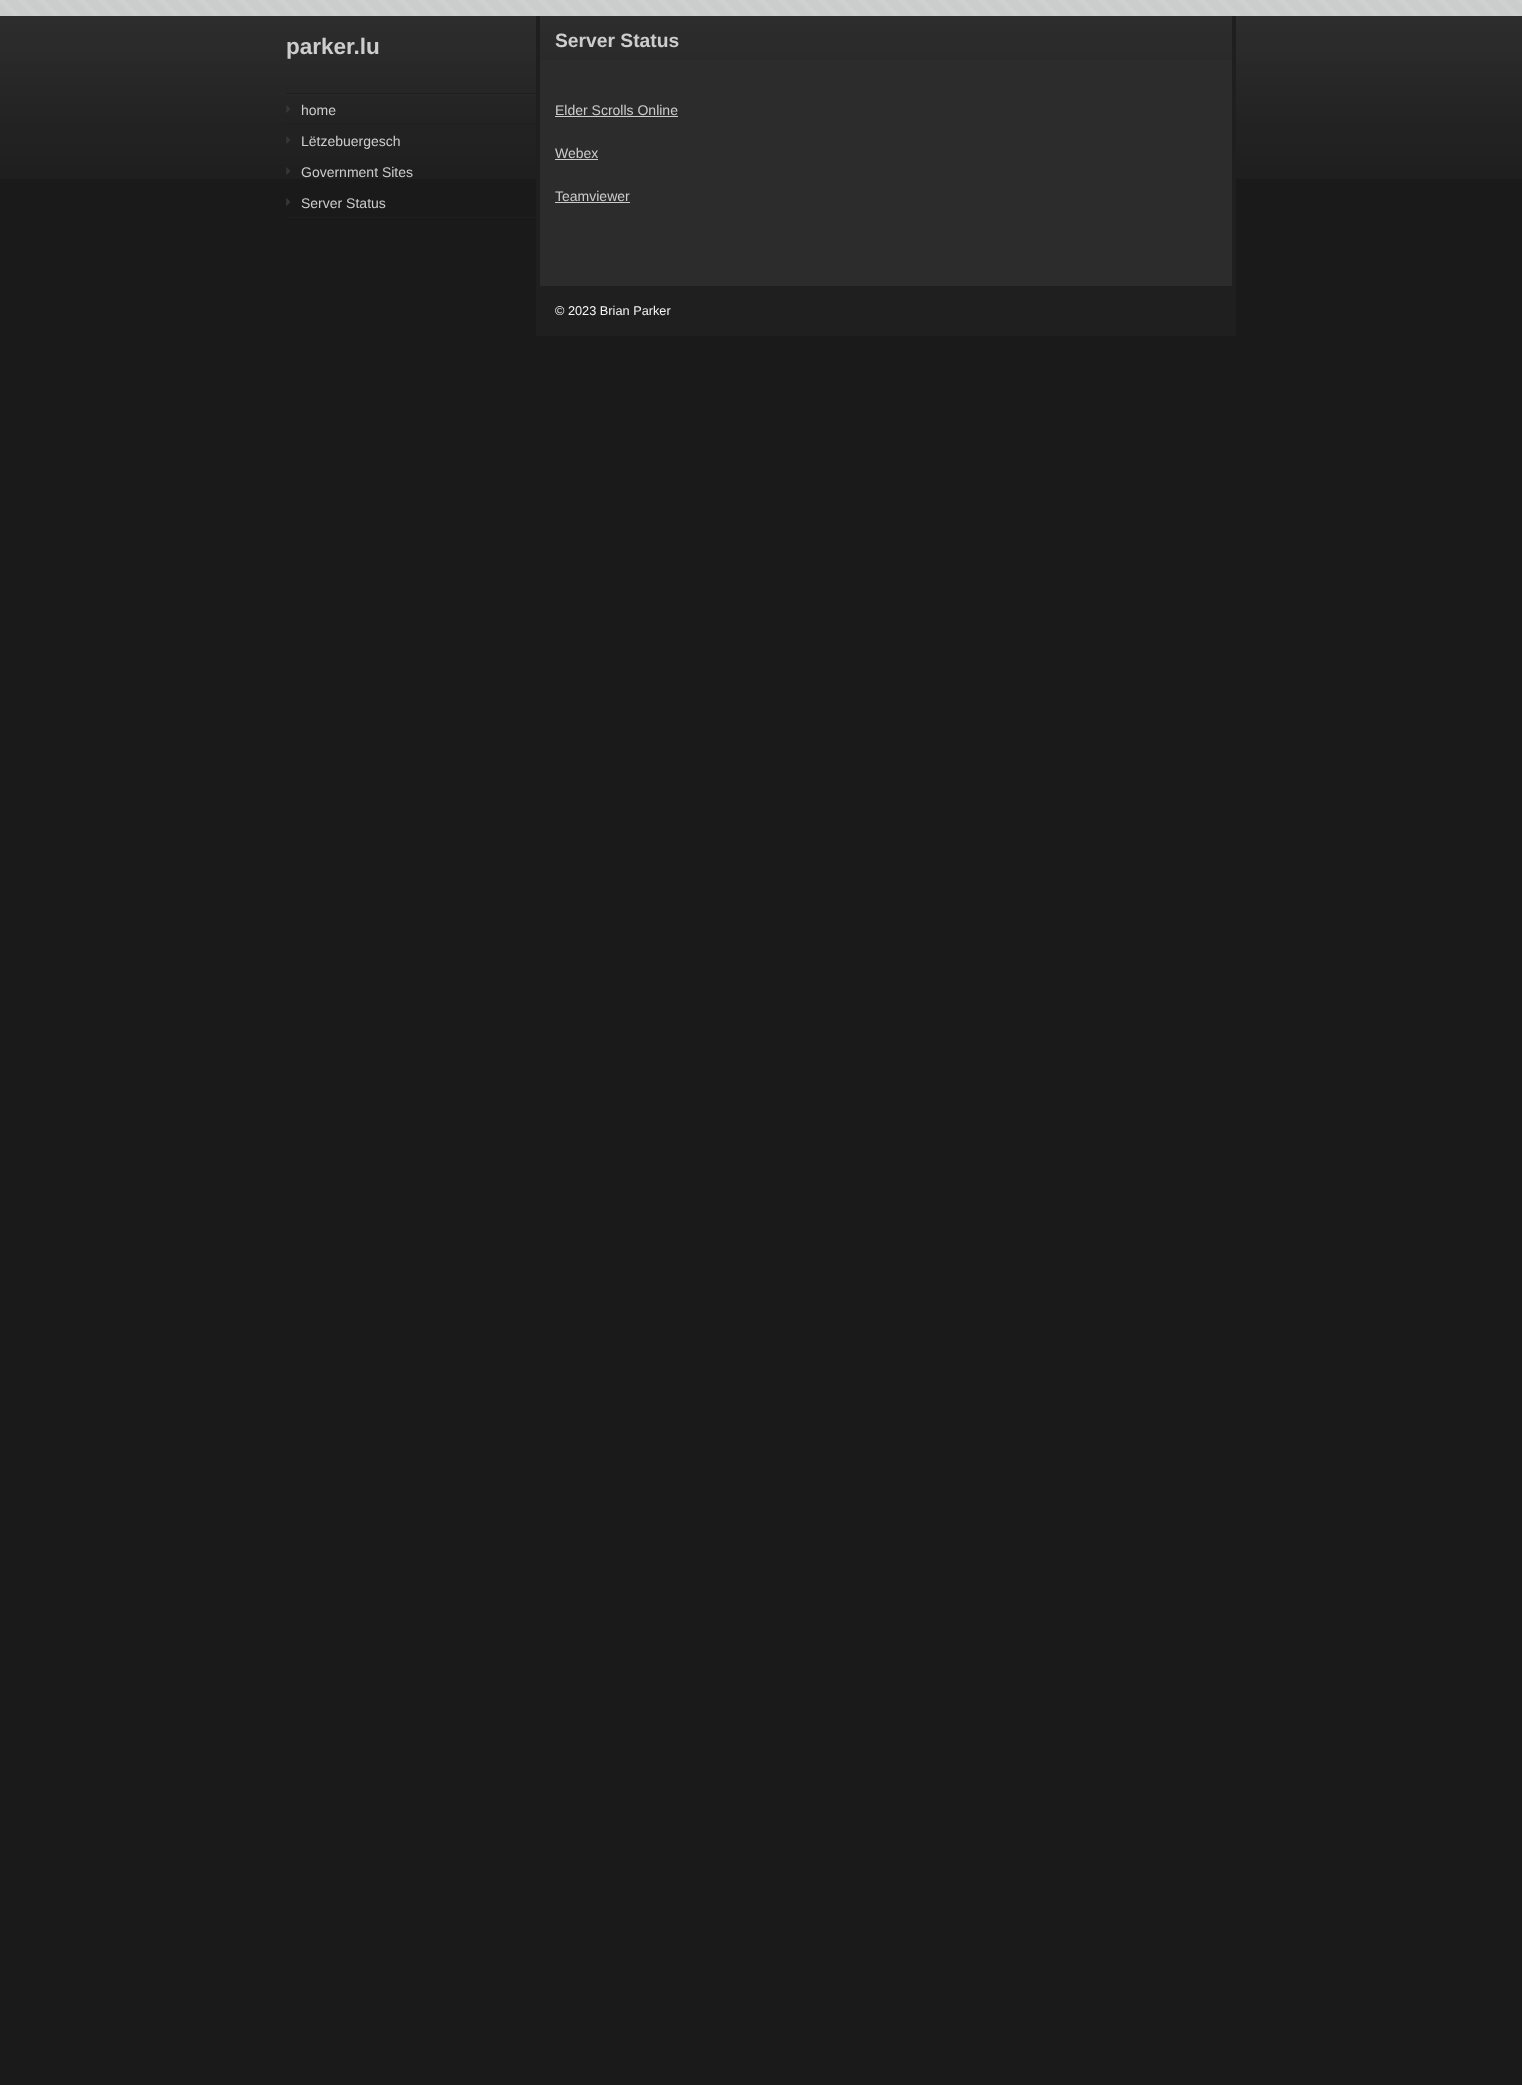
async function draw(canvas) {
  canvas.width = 1522
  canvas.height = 2085
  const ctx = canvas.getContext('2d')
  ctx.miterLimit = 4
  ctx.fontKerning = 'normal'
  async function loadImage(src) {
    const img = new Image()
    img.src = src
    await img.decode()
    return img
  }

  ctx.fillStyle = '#1a1a1a'
  ctx.fillRect(0, 0, 1522, 2085)
  ctx.fillStyle = '#cbcccc'
  ctx.fillRect(0, 0, 1522, 16)
  ctx.drawImage(await loadImage('image0.png'), 0, 0, 1522, 16)
  ctx.drawImage(await loadImage('image1.png'), 0, 16, 1522, 163)
  ctx.font = 'bold 22.5px Liberation Sans'
  ctx.fillStyle = '#cdcdcd'
  ctx.fillText('parker.lu', 286, 54)
  ctx.fillStyle = '#1f1f1f'
  ctx.fillRect(286, 93, 250, 1)
  ctx.drawImage(await loadImage('image2.png'), 286, 105, 4, 8)
  ctx.fillRect(286, 124, 250, 1)
  ctx.font = '14px Liberation Sans'
  ctx.fillStyle = '#cdcdcd'
  ctx.fillText('home', 301, 115)
  ctx.drawImage(await loadImage('image3.png'), 286, 136, 4, 8)
  ctx.fillText('Lëtzebuergesch', 301, 146)
  ctx.drawImage(await loadImage('image4.png'), 286, 167, 4, 8)
  ctx.fillText('Government Sites', 301, 177)
  ctx.drawImage(await loadImage('image5.png'), 286, 198, 4, 8)
  ctx.fillStyle = '#1f1f1f'
  ctx.fillRect(286, 217, 250, 1)
  ctx.fillStyle = '#cdcdcd'
  ctx.fillText('Server Status', 301, 208)
  ctx.fillStyle = '#2c2c2c'
  ctx.fillRect(540, 60, 692, 226)
  ctx.fillStyle = '#1f1f1f'
  ctx.fillRect(1232, 16, 4, 320)
  ctx.fillRect(536, 16, 4, 320)
  ctx.font = 'bold 19.25px Liberation Sans'
  ctx.fillStyle = '#cdcdcd'
  ctx.fillText('Server Status', 555, 47)
  ctx.font = '14px Liberation Sans'
  ctx.fillText('Elder Scrolls Online', 555, 115)
  ctx.fillStyle = '#cbcccc'
  ctx.fillRect(555, 116, 123, 1)
  ctx.fillStyle = '#cdcdcd'
  ctx.fillText('Webex', 555, 158)
  ctx.fillStyle = '#cbcccc'
  ctx.fillRect(555, 159, 43, 1)
  ctx.fillStyle = '#cdcdcd'
  ctx.fillText('Teamviewer', 555, 201)
  ctx.fillStyle = '#cbcccc'
  ctx.fillRect(555, 202, 75, 1)
  ctx.fillStyle = '#1f1f1f'
  ctx.fillRect(540, 286, 692, 50)
  ctx.font = '12.75px Liberation Sans'
  ctx.fillStyle = '#f4f4f4'
  ctx.fillText('© 2023 Brian Parker', 555, 315)
}

draw(document.querySelector('canvas'))
